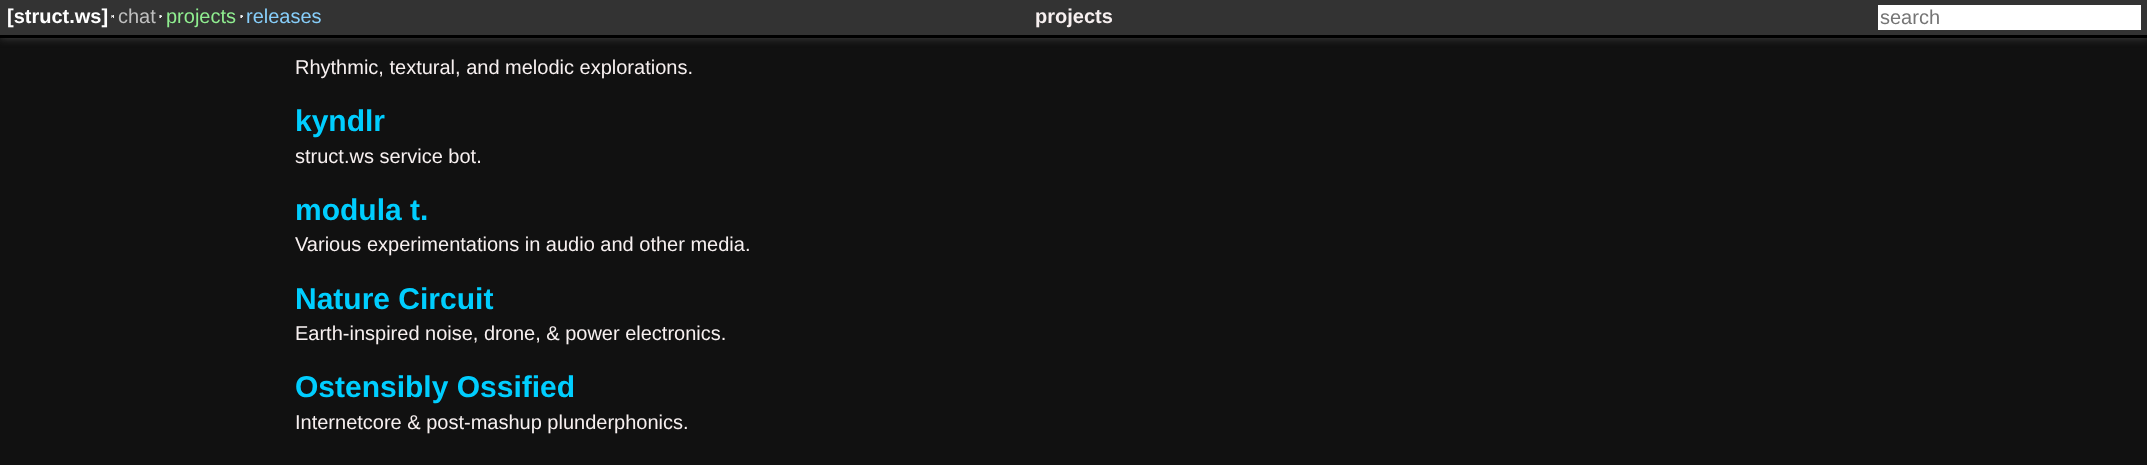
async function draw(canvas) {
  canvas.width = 2147
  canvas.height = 465
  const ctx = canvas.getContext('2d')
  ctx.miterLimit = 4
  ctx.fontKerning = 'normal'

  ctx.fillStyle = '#111'
  ctx.fillRect(0, 0, 2147, 465)
  ctx.fillStyle = '#444'
  ctx.filter = 'blur(4.5px)'
  ctx.beginPath()
  ctx.rect(0, 0, 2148, 38)
  ctx.fill()
  ctx.filter = 'none'
  ctx.fillStyle = '#333'
  ctx.fillRect(0, 0, 2147, 35)
  ctx.fillStyle = '#000'
  ctx.fillRect(0, 35, 2147, 3)
  ctx.font = 'bold 20px Liberation Sans'
  ctx.fillStyle = '#fff'
  ctx.fillText('[struct.ws]', 7, 23)
  ctx.fillStyle = '#9f9f9f'
  ctx.fillRect(111, 15, 3, 1)
  ctx.fillStyle = '#eee'
  ctx.fillRect(113, 15, 1, 3)
  ctx.fillRect(111, 16, 3, 1)
  ctx.fillStyle = '#9f9f9f'
  ctx.fillRect(111, 15, 1, 3)
  ctx.font = '20px Liberation Sans'
  ctx.fillStyle = '#c0c0c0'
  ctx.fillText('chat', 118, 23)
  ctx.fillStyle = '#9f9f9f'
  ctx.fillRect(159, 15, 3, 1)
  ctx.fillStyle = '#eee'
  ctx.fillRect(160, 15, 1, 3)
  ctx.fillRect(159, 16, 3, 1)
  ctx.fillStyle = '#9f9f9f'
  ctx.fillRect(159, 15, 1, 3)
  ctx.fillStyle = '#90ee90'
  ctx.fillText('projects', 166, 23)
  ctx.fillStyle = '#9f9f9f'
  ctx.fillRect(240, 15, 3, 1)
  ctx.fillStyle = '#eee'
  ctx.fillRect(241, 15, 1, 3)
  ctx.fillRect(240, 16, 3, 1)
  ctx.fillStyle = '#9f9f9f'
  ctx.fillRect(240, 15, 1, 3)
  ctx.fillStyle = '#87cefa'
  ctx.fillText('releases', 246, 23)
  ctx.font = 'bold 20px Liberation Sans'
  ctx.fillStyle = '#f7f0f0'
  ctx.fillText('projects', 1035, 23)
  ctx.fillStyle = '#fff'
  ctx.fillRect(1878, 5, 263, 25)
  ctx.font = '20px Liberation Sans'
  ctx.fillStyle = '#757575'
  ctx.fillText('search', 1880, 24)
  ctx.fillStyle = '#f7f0f0'
  ctx.fillText('Rhythmic, textural, and melodic explorations.', 295, 74)
  ctx.font = 'bold 30px Liberation Sans'
  ctx.fillStyle = '#00ceff'
  ctx.fillText('kyndlr', 295, 131)
  ctx.font = '20px Liberation Sans'
  ctx.fillStyle = '#f7f0f0'
  ctx.fillText('struct.ws service bot.', 295, 163)
  ctx.font = 'bold 30px Liberation Sans'
  ctx.fillStyle = '#00ceff'
  ctx.fillText('modula t.', 295, 220)
  ctx.font = '20px Liberation Sans'
  ctx.fillStyle = '#f7f0f0'
  ctx.fillText('Various experimentations in audio and other media.', 295, 251)
  ctx.font = 'bold 30px Liberation Sans'
  ctx.fillStyle = '#00ceff'
  ctx.fillText('Nature Circuit', 295, 309)
  ctx.font = '20px Liberation Sans'
  ctx.fillStyle = '#f7f0f0'
  ctx.fillText('Earth-inspired noise, drone, & power electronics.', 295, 340)
  ctx.font = 'bold 30px Liberation Sans'
  ctx.fillStyle = '#00ceff'
  ctx.fillText('Ostensibly Ossified', 295, 397)
  ctx.font = '20px Liberation Sans'
  ctx.fillStyle = '#f7f0f0'
  ctx.fillText('Internetcore & post-mashup plunderphonics.', 295, 429)
}

draw(document.querySelector('canvas'))
